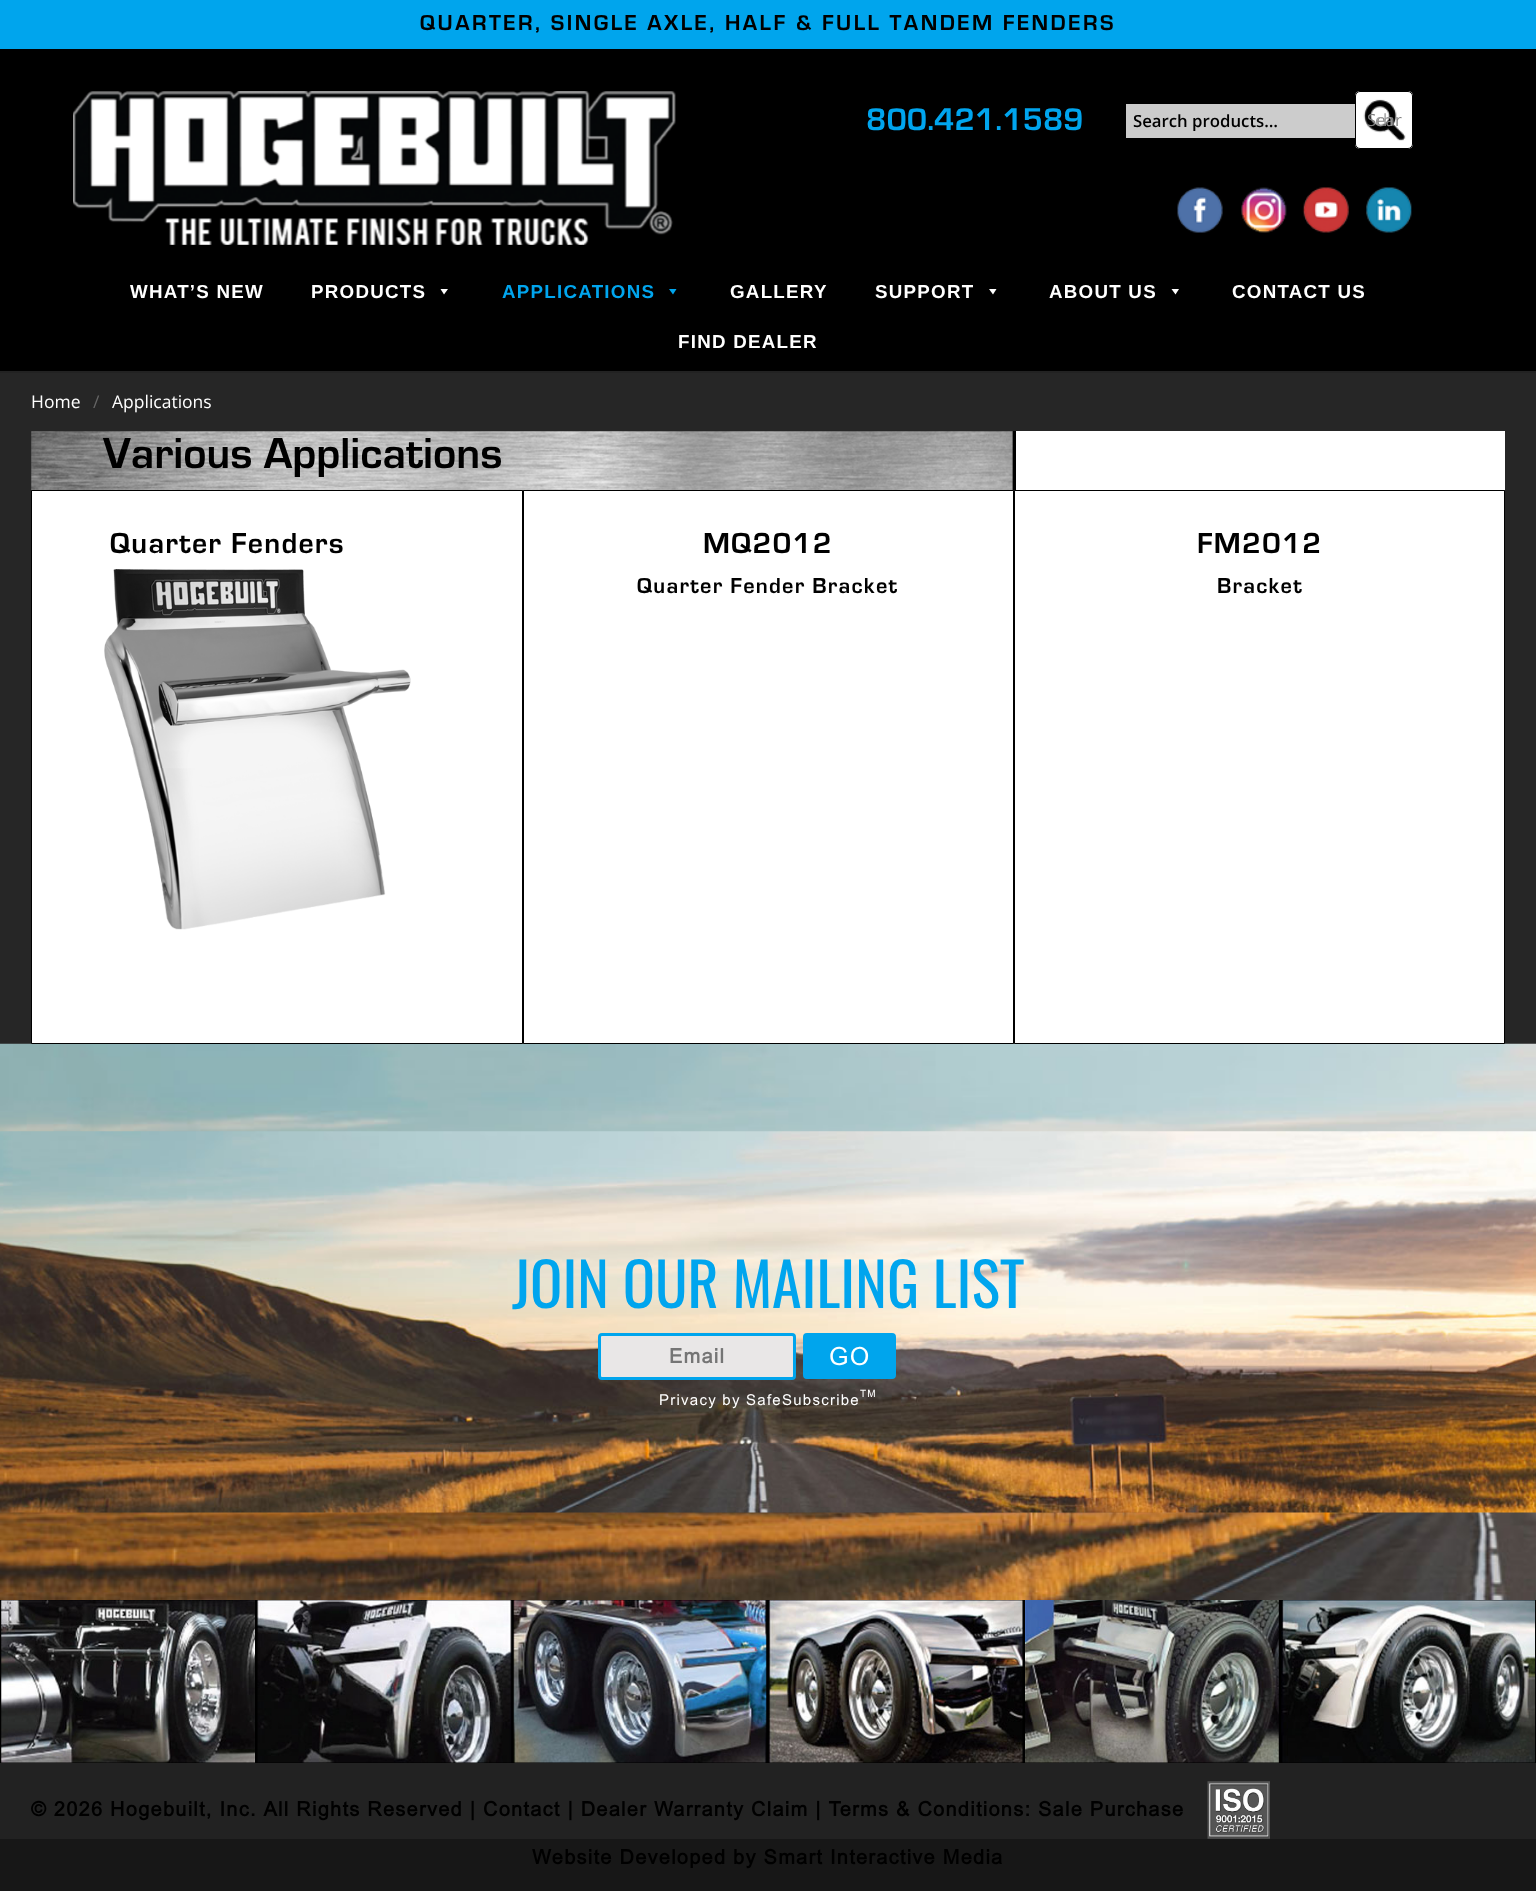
async function draw(canvas) {
  canvas.width = 1536
  canvas.height = 1904
  const ctx = canvas.getContext('2d')
  ctx.miterLimit = 4
  ctx.fontKerning = 'normal'
  async function loadImage(src) {
    const img = new Image()
    img.src = src
    await img.decode()
    return img
  }

  ctx.fillStyle = '#fff'
  ctx.fillRect(0, 0, 1536, 1904)
  ctx.fillStyle = '#222'
  ctx.fillRect(0, 371, 1536, 2)
  ctx.fillStyle = '#000'
  ctx.fillRect(0, 49, 1536, 322)
  ctx.fillStyle = '#00a5ed'
  ctx.fillRect(0, 0, 1536, 49)
  ctx.letterSpacing = '2.5px'
  ctx.font = 'bold 22.5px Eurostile'
  ctx.fillStyle = '#000'
  ctx.fillText('QUARTER, SINGLE AXLE, HALF & FULL TANDEM FENDERS', 420, 30)
  ctx.drawImage(await loadImage('image0.png'), 73, 91, 603, 154)
  ctx.letterSpacing = '0px'
  ctx.font = 'bold 32.5px Eurostile'
  ctx.fillStyle = '#00a5ee'
  ctx.fillText('800.421.1589', 866, 130)
  ctx.fillStyle = '#ccc'
  ctx.fillRect(1126, 104, 229, 34)
  ctx.font = '600 16.75px Open Sans'
  ctx.fillStyle = '#000'
  ctx.fillText('Search products…', 1133, 127)
  ctx.fillStyle = '#fff'
  ctx.beginPath()
  ctx.roundRect(1355, 91, 58, 58, 5)
  ctx.fill()
  ctx.drawImage(await loadImage('image1.png'), 1363, 99, 43, 42)
  ctx.beginPath()
  ctx.roundRect(1355.5, 91.5, 57, 57, 4.5)
  ctx.strokeStyle = '#000'
  ctx.stroke()
  ctx.font = '16.75px Open Sans'
  ctx.fillStyle = '#818181'
  ctx.fillText('Sear', 1367, 126)
  ctx.fillStyle = '#9c9c9c'
  ctx.fillText('ch', 1375, 126)
  ctx.drawImage(await loadImage('image2.png'), 1177, 187, 46, 46)
  ctx.drawImage(await loadImage('image3.png'), 1241, 187, 46, 46)
  ctx.drawImage(await loadImage('image4.png'), 1302, 187, 47, 46)
  ctx.drawImage(await loadImage('image5.png'), 1366, 187, 46, 46)
  ctx.letterSpacing = '1.25px'
  ctx.font = 'bold 18.75px Liberation Sans'
  ctx.fillStyle = '#fff'
  ctx.fillText('WHAT’S NEW', 130, 298)
  ctx.fillText('PRODUCTS', 311, 298)
  ctx.beginPath()
  ctx.moveTo(448, 289)
  ctx.lineTo(444, 294.5)
  ctx.lineTo(440.5, 289)
  ctx.closePath()
  ctx.fill()
  ctx.fillStyle = '#00a5ee'
  ctx.fillText('APPLICATIONS', 502, 298)
  ctx.fillStyle = '#00a5ed'
  ctx.beginPath()
  ctx.moveTo(676.5, 289)
  ctx.lineTo(673, 294.5)
  ctx.lineTo(669, 289)
  ctx.closePath()
  ctx.fill()
  ctx.fillStyle = '#fff'
  ctx.fillText('GALLERY', 730, 298)
  ctx.fillText('SUPPORT', 875, 298)
  ctx.beginPath()
  ctx.moveTo(996.5, 289)
  ctx.lineTo(993, 294.5)
  ctx.lineTo(989, 289)
  ctx.closePath()
  ctx.fill()
  ctx.fillText('ABOUT US', 1049, 298)
  ctx.beginPath()
  ctx.moveTo(1179, 289)
  ctx.lineTo(1175.5, 294.5)
  ctx.lineTo(1171.5, 289)
  ctx.closePath()
  ctx.fill()
  ctx.fillText('CONTACT US', 1232, 298)
  ctx.fillText('FIND DEALER', 678, 348)
  ctx.fillStyle = '#262626'
  ctx.fillRect(0, 373, 1536, 671)
  ctx.letterSpacing = '0px'
  ctx.font = '17.5px Open Sans'
  ctx.fillStyle = '#fff'
  ctx.fillText('Home', 31, 408)
  ctx.fillStyle = '#666'
  ctx.fillText('/', 93, 408)
  ctx.fillStyle = '#fff'
  ctx.fillText('Applications', 112, 408)
  ctx.drawImage(await loadImage('image6.png'), 31, 431, 982, 59)
  ctx.font = 'bold 45px Eurostile'
  ctx.fillStyle = '#000'
  ctx.fillText('Various Applications', 103, 468)
  ctx.fillStyle = '#fff'
  ctx.fillRect(1016, 431, 489, 59)
  ctx.fillStyle = '#000'
  ctx.fillRect(1013, 431, 3, 59)
  ctx.drawImage(await loadImage('image8.png'), 0, 1043, 1536, 557)
  ctx.fillStyle = '#fff'
  ctx.beginPath()
  ctx.rect(31.5, 490.5, 491, 553)
  ctx.fill()
  ctx.stroke()
  ctx.letterSpacing = '1.25px'
  ctx.font = 'bold 30px Eurostile'
  ctx.fillStyle = '#000'
  ctx.fillText('Quarter Fenders', 110, 553)
  ctx.drawImage(await loadImage('image7.png'), 104, 569, 307, 361)
  ctx.fillStyle = '#fff'
  ctx.beginPath()
  ctx.rect(523.5, 490.5, 490, 553)
  ctx.fill()
  ctx.stroke()
  ctx.fillStyle = '#000'
  ctx.fillText('MQ2012', 703, 553)
  ctx.font = 'bold 22.5px Eurostile'
  ctx.fillText('Quarter Fender Bracket', 637, 593)
  ctx.fillStyle = '#fff'
  ctx.beginPath()
  ctx.rect(1014.5, 490.5, 490, 553)
  ctx.fill()
  ctx.stroke()
  ctx.font = 'bold 30px Eurostile'
  ctx.fillStyle = '#000'
  ctx.fillText('FM2012', 1197, 553)
  ctx.font = 'bold 22.5px Eurostile'
  ctx.fillText('Bracket', 1217, 593)
  ctx.drawImage(await loadImage('image9.png'), 0, 1131, 1536, 382)
  ctx.letterSpacing = '0px'
  ctx.font = '60px Oswald'
  ctx.fillStyle = '#00a5ee'
  ctx.fillText('JOIN OUR MAILING LIST', 512, 1308)
  ctx.fillStyle = '#e9e7e7'
  ctx.beginPath()
  ctx.roundRect(599.5, 1334.5, 195, 44, 2.5)
  ctx.fill()
  ctx.strokeStyle = '#00a5ed'
  ctx.lineWidth = 3
  ctx.stroke()
  ctx.letterSpacing = '1.25px'
  ctx.font = 'bold 20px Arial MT'
  ctx.fillStyle = '#757575'
  ctx.fillText('Email', 669, 1363)
  ctx.fillStyle = '#00a5ed'
  ctx.beginPath()
  ctx.roundRect(804.5, 1334.5, 90, 43, 2.5)
  ctx.fill()
  ctx.stroke()
  ctx.font = '25px Arial MT'
  ctx.fillStyle = '#fff'
  ctx.fillText('GO', 829, 1365)
  ctx.font = '10px Arial MT'
  ctx.fillText('TM', 860, 1397)
  ctx.font = '15px Arial MT'
  ctx.fillText('Privacy by SafeSubscribe', 659, 1405)
  ctx.fillStyle = '#000'
  ctx.fillRect(0, 1600, 1536, 163)
  ctx.drawImage(await loadImage('image10.png'), 1, 1600, 254, 163)
  ctx.drawImage(await loadImage('image11.png'), 257, 1600, 255, 163)
  ctx.drawImage(await loadImage('image12.png'), 513, 1600, 254, 163)
  ctx.drawImage(await loadImage('image13.png'), 768, 1600, 255, 163)
  ctx.drawImage(await loadImage('image14.png'), 1025, 1600, 254, 163)
  ctx.drawImage(await loadImage('image15.png'), 1281, 1600, 254, 163)
  ctx.fillStyle = '#222'
  ctx.fillRect(0, 1763, 1536, 76)
  ctx.font = 'bold 20px Arial MT'
  ctx.fillStyle = '#000'
  ctx.fillText('© 2026 Hogebuilt, Inc. All Rights Reserved | Contact | Dealer Warranty Claim | Terms & Conditions: Sale Purchase', 31, 1816)
  ctx.drawImage(await loadImage('image16.png'), 1207, 1781, 63, 58)
  ctx.fillStyle = '#171717'
  ctx.fillRect(0, 1839, 1536, 52)
  ctx.fillStyle = '#000'
  ctx.fillText('Website Developed by Smart Interactive Media', 532, 1864)
}

draw(document.querySelector('canvas'))
